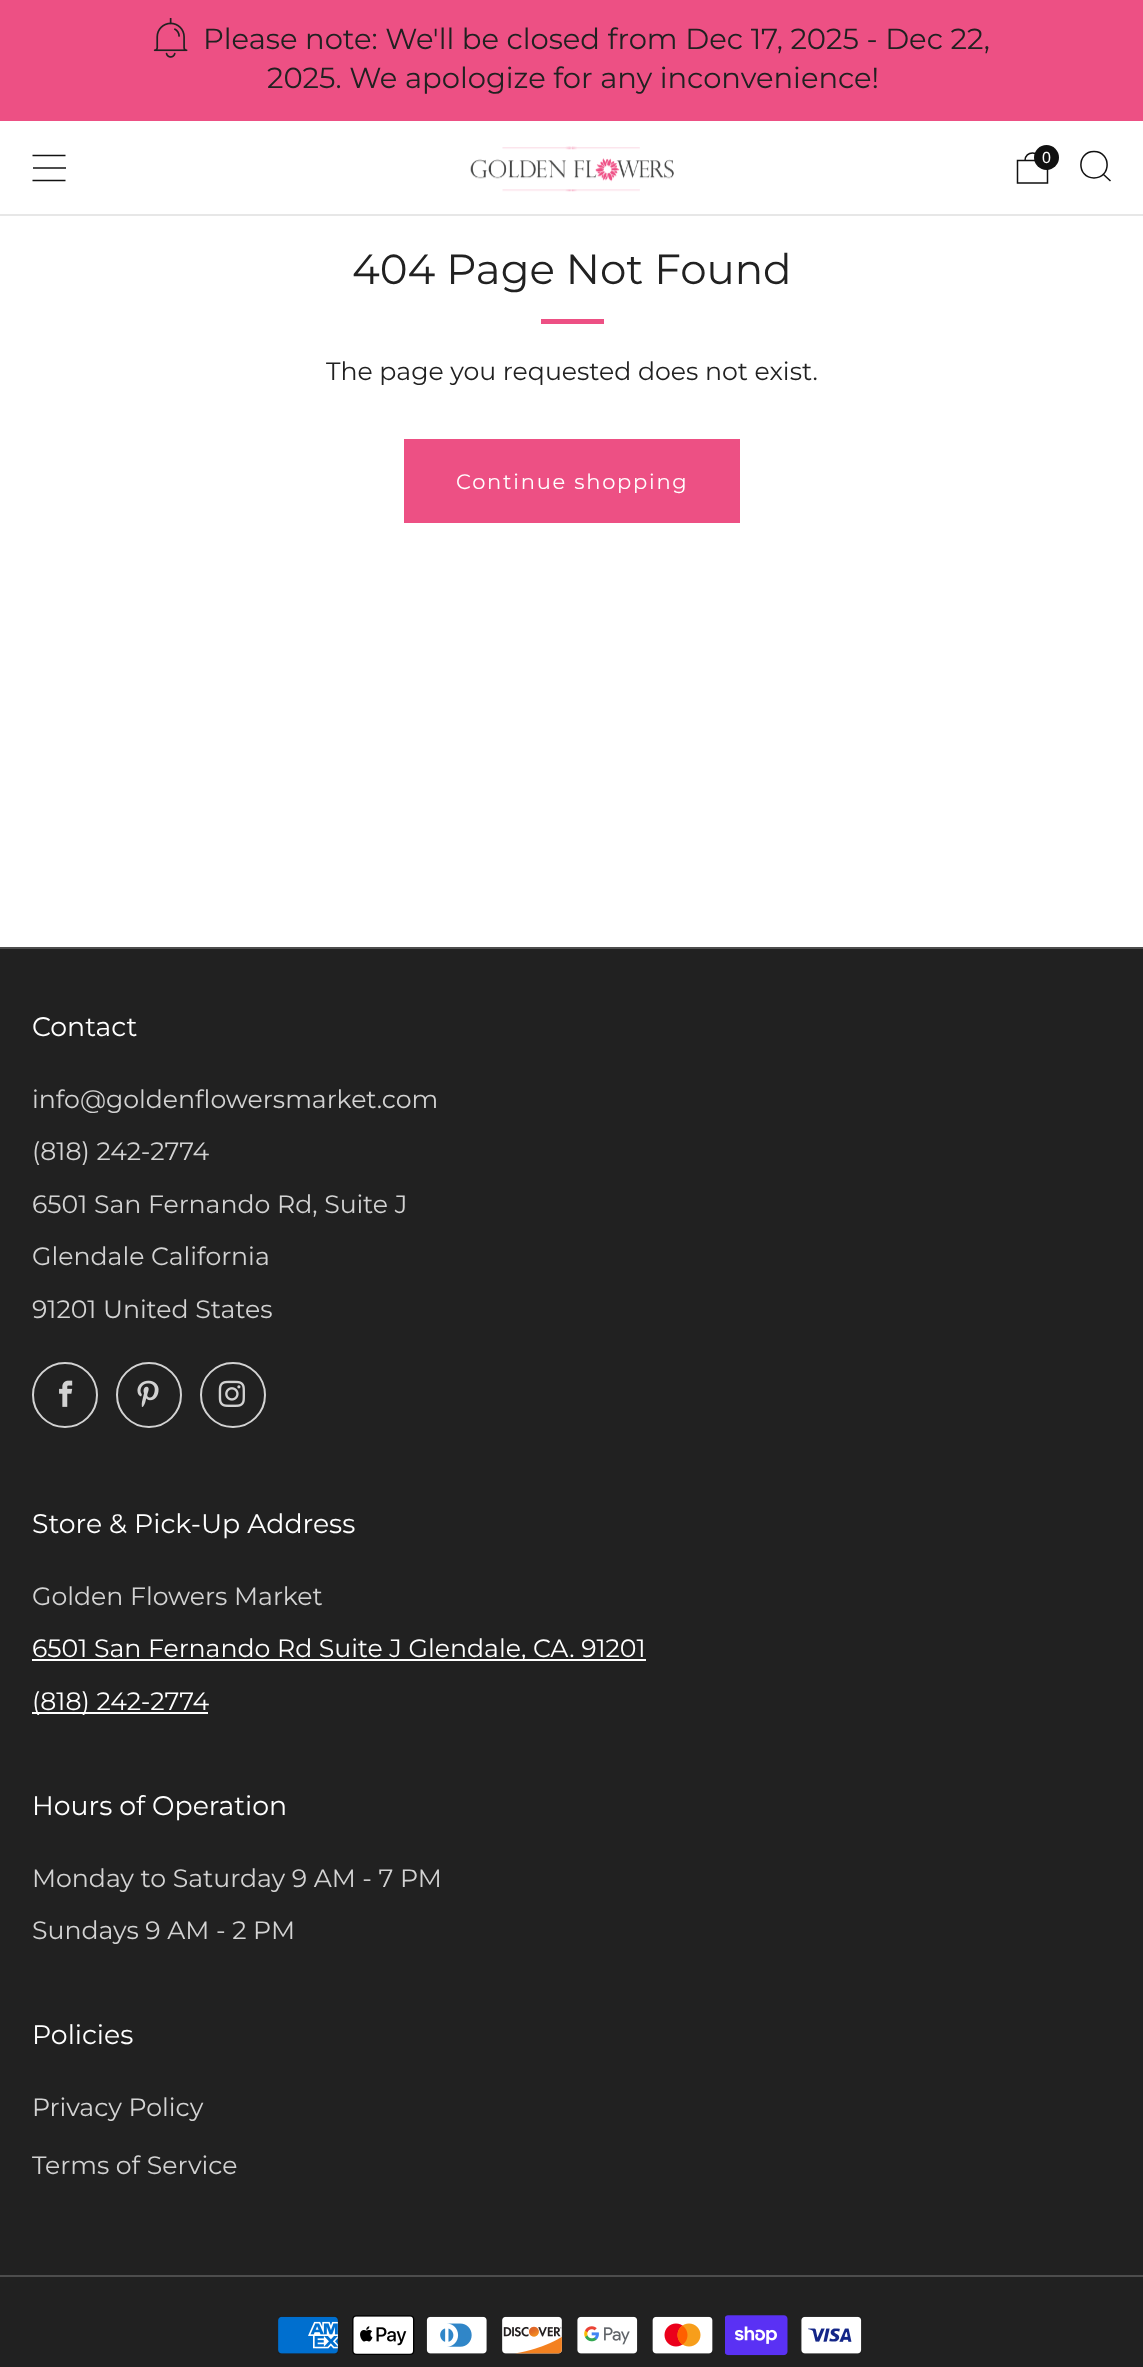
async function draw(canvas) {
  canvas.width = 1143;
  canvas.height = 2367;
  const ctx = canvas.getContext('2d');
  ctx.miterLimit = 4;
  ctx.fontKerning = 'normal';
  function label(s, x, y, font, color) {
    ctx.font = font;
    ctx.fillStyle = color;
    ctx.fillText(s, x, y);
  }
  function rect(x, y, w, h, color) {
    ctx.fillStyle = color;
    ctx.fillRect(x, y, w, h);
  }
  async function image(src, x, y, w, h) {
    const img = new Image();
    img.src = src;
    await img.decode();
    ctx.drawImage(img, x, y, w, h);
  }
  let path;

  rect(0, 0, 1143, 2367, '#fff');
  rect(0, 0, 1143, 121, '#ed5084');
  await image('assets/img1.png', 153, 18, 35, 40);
  label('Please note: We\'ll be closed from Dec 17, 2025 - Dec 22,', 203, 49, '29px Montserrat', '#212121');
  label('2025. We apologize for any inconvenience!', 267, 88, '29px Montserrat', '#212121');
  rect(0, 214, 1143, 2, '#e7e7e7');
  path = new Path2D('M32.5 155.5H65.5');
  ctx.strokeStyle = '#111';
  ctx.lineWidth = 1.5;
  ctx.stroke(path);
  rect(33, 167, 33, 2, '#4d4d4d');
  path = new Path2D('M32.5 180.5H65.5');
  ctx.stroke(path);
  await image('assets/img2.png', 470, 146, 204, 46);
  path = new Path2D('M1017.5 160.5H1047.5V183H1017.5ZM1040 160.5C1040 150.5 1025 150.5 1025 160.5');
  ctx.stroke(path);
  ctx.fillStyle = '#111';
  ctx.beginPath();
  ctx.arc(1046.5, 157.5, 12.5, 0, 2 * Math.PI);
  ctx.fill();
  label('0', 1042, 163, '16px Liberation Sans', '#fff');
  path = new Path2D('M1094 178C1111.5 178 1111.5 151.5 1094 151.5C1076.5 151.5 1076.5 178 1094 178ZM1103.5 174.5L1110.5 181');
  ctx.stroke(path);
  label('404 Page Not Found', 352, 284, '42px Montserrat', '#212121');
  rect(541, 319, 63, 5, '#ed5084');
  label('The page you requested does not exist.', 326, 380, '25.2px Montserrat', '#212121');
  rect(404, 439, 336, 84, '#ed5084');
  ctx.letterSpacing = '1.75px';
  label('Continue shopping', 456, 489, '21px Montserrat', '#fff');
  rect(0, 949, 1143, 1418, '#212121');
  rect(0, 947, 1143, 2, '#4d4d4d');
  ctx.letterSpacing = '0px';
  label('Contact', 32, 1036, '26.75px Montserrat', '#fff');
  label('info@goldenflowersmarket.com', 32, 1108, '25.2px Montserrat', '#d3d3d3');
  label('(818) 242-2774', 32, 1160, '25.2px Montserrat', '#d3d3d3');
  label('6501 San Fernando Rd, Suite J', 32, 1213, '25.2px Montserrat', '#d3d3d3');
  label('Glendale California', 32, 1265, '25.2px Montserrat', '#d3d3d3');
  label('91201 United States', 32, 1318, '25.2px Montserrat', '#d3d3d3');
  ctx.beginPath();
  ctx.arc(65, 1395, 32, 0, 2 * Math.PI);
  ctx.strokeStyle = '#d3d3d3';
  ctx.lineWidth = 2;
  ctx.stroke();
  await image('assets/img3.png', 59, 1380, 14, 27);
  ctx.beginPath();
  ctx.arc(149, 1395, 32, 0, 2 * Math.PI);
  ctx.stroke();
  await image('assets/img4.png', 137, 1380, 22, 27);
  ctx.beginPath();
  ctx.arc(233, 1395, 32, 0, 2 * Math.PI);
  ctx.stroke();
  await image('assets/img5.png', 218, 1380, 27, 27);
  label('Store & Pick-Up Address', 32, 1533, '26.75px Montserrat', '#fff');
  label('Golden Flowers Market', 32, 1605, '25.2px Montserrat', '#d3d3d3');
  rect(32, 1659, 614, 2, '#fff');
  label('6501 San Fernando Rd Suite J Glendale, CA. 91201', 32, 1657, '25.2px Montserrat', '#fff');
  rect(32, 1712, 176, 2, '#fff');
  label('(818) 242-2774', 32, 1710, '25.2px Montserrat', '#fff');
  label('Hours of Operation', 32, 1815, '26.75px Montserrat', '#fff');
  label('Monday to Saturday 9 AM - 7 PM', 32, 1887, '25.2px Montserrat', '#d3d3d3');
  label('Sundays 9 AM - 2 PM', 32, 1939, '25.2px Montserrat', '#d3d3d3');
  label('Policies', 32, 2044, '26.75px Montserrat', '#fff');
  label('Privacy Policy', 32, 2116, '25.2px Montserrat', '#d3d3d3');
  label('Terms of Service', 32, 2174, '25.2px Montserrat', '#d3d3d3');
  rect(0, 2275, 1143, 2, '#4d4d4d');
  await image('assets/img6.png', 278, 2316, 60, 38);
  await image('assets/img7.png', 352, 2315, 63, 40);
  await image('assets/img8.png', 426, 2316, 61, 38);
  await image('assets/img9.png', 502, 2316, 60, 38);
  await image('assets/img10.png', 577, 2316, 61, 38);
  await image('assets/img11.png', 652, 2316, 61, 38);
  await image('assets/img12.png', 725, 2315, 63, 41);
  await image('assets/img13.png', 801, 2316, 61, 38);
}

draw(document.querySelector('canvas'));
